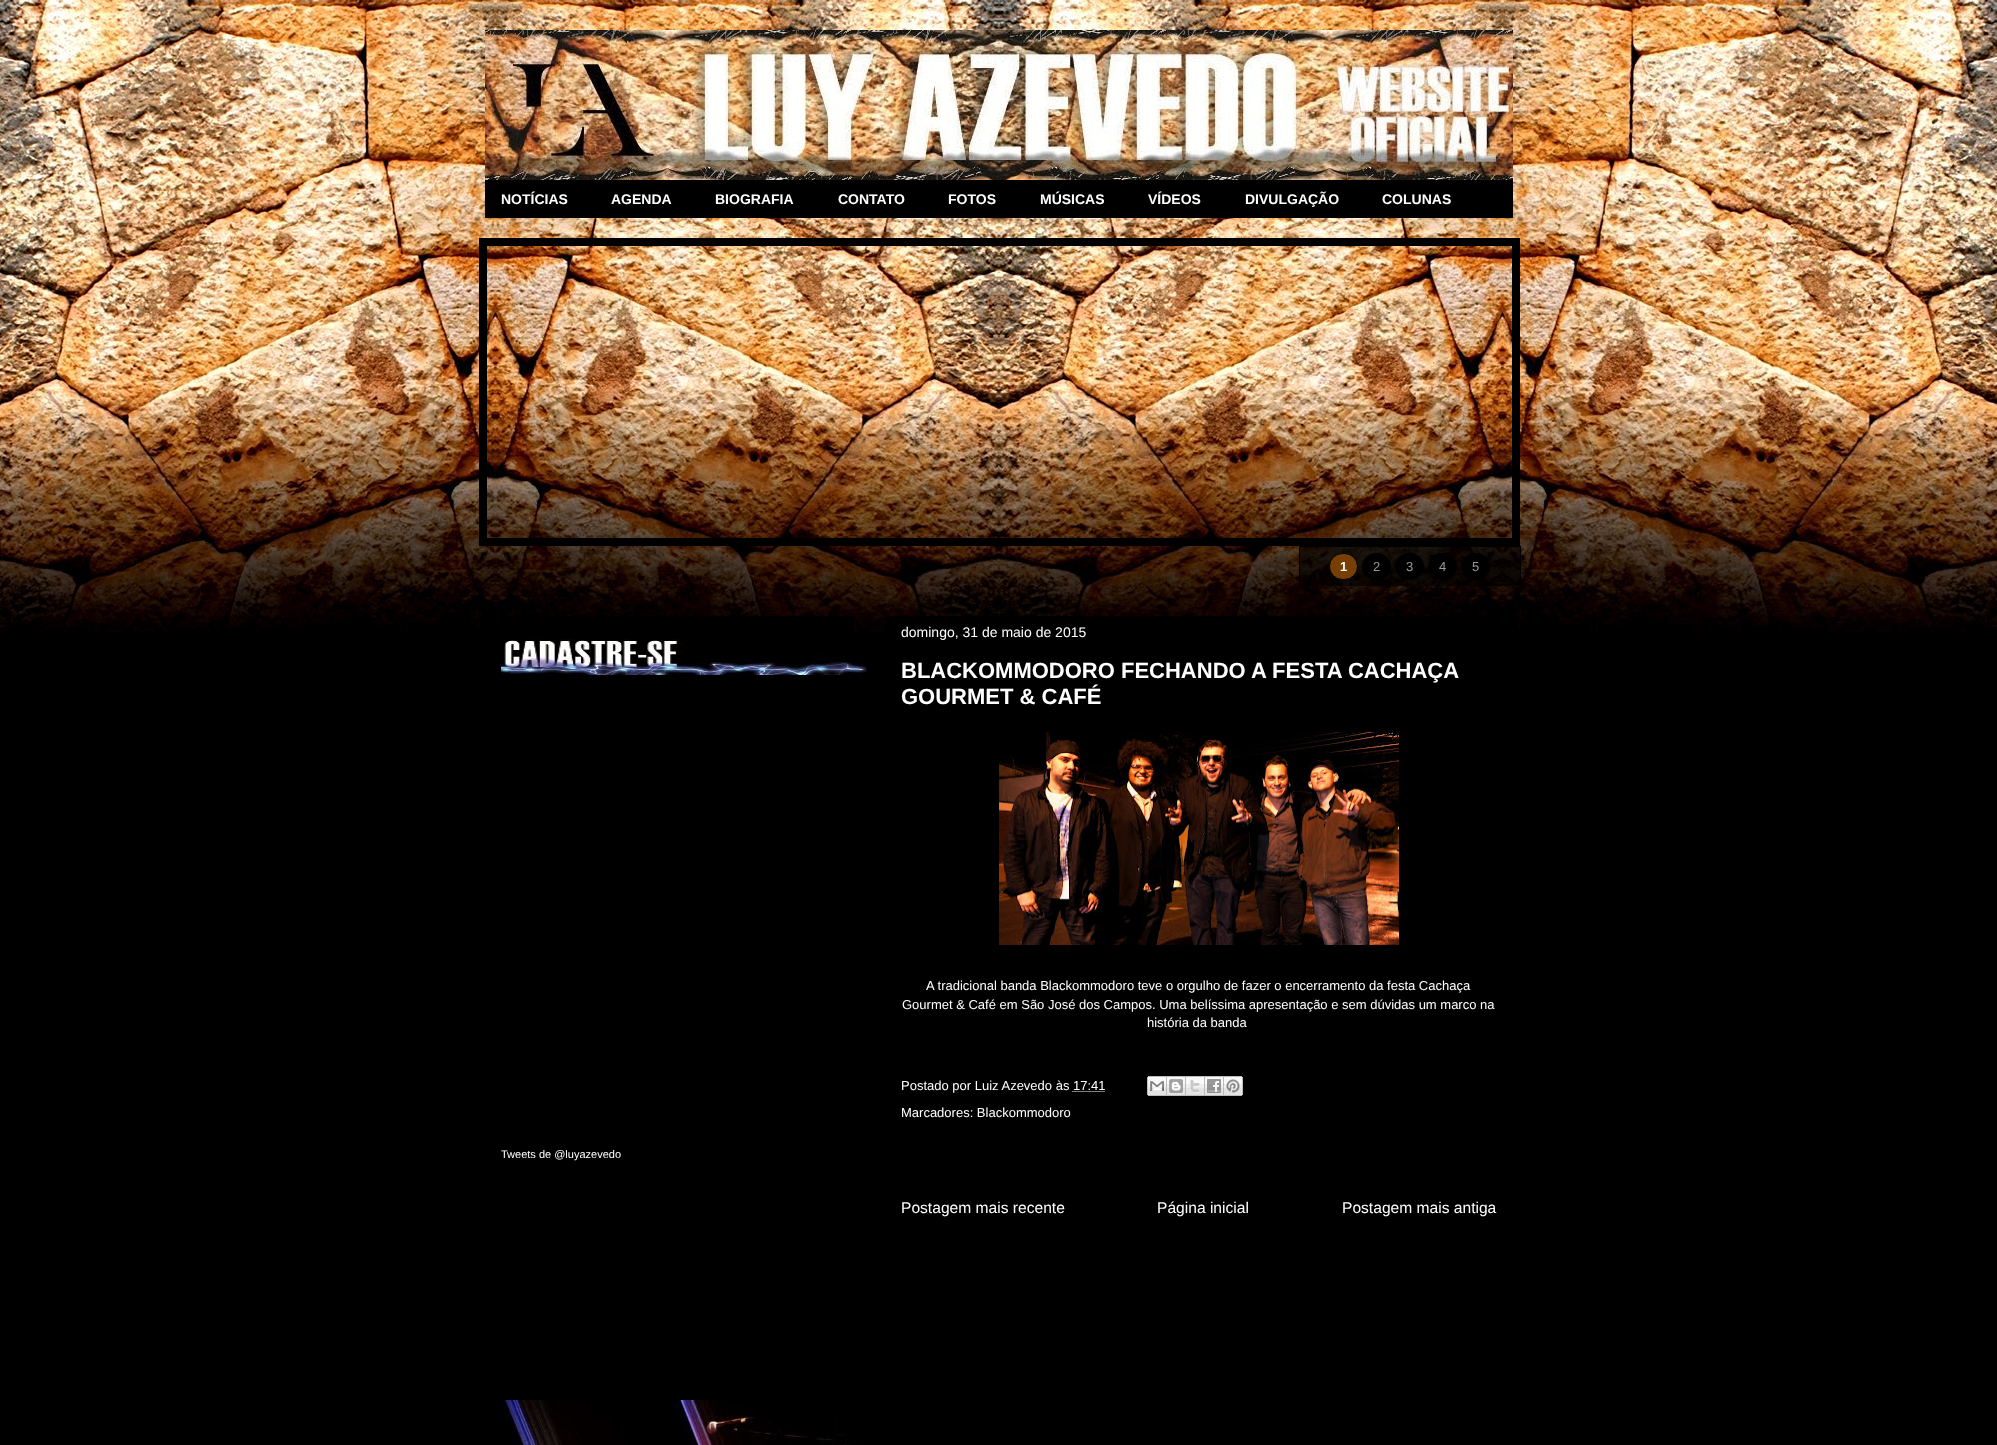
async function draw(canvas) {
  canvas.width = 1997;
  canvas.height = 1445;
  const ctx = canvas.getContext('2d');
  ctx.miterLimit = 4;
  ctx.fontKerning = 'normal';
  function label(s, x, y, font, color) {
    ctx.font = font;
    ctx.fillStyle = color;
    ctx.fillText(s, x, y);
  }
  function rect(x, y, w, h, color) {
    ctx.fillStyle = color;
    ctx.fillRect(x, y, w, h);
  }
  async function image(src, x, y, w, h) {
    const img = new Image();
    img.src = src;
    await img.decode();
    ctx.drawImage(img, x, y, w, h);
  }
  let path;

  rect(0, 0, 1997, 1445, '#000');
  await image('assets/img1.png', 0, 0, 1997, 632);
  await image('assets/img2.png', 485, 30, 1028, 150);
  rect(485, 180, 1028, 38, '#000');
  label('NOTÍCIAS', 501, 204, 'bold 14px Liberation Sans', '#fff');
  label('AGENDA', 611, 204, 'bold 14px Liberation Sans', '#fff');
  label('BIOGRAFIA', 715, 204, 'bold 14px Liberation Sans', '#fff');
  label('CONTATO', 838, 204, 'bold 14px Liberation Sans', '#fff');
  label('FOTOS', 948, 204, 'bold 14px Liberation Sans', '#fff');
  label('MÚSICAS', 1040, 204, 'bold 14px Liberation Sans', '#fff');
  label('VÍDEOS', 1148, 204, 'bold 14px Liberation Sans', '#fff');
  label('DIVULGAÇÃO', 1245, 204, 'bold 14px Liberation Sans', '#fff');
  label('COLUNAS', 1382, 204, 'bold 14px Liberation Sans', '#fff');
  ctx.strokeStyle = '#000';
  ctx.lineWidth = 8;
  ctx.strokeRect(483, 242, 1033, 300);
  rect(1300, 547, 220, 39, '#000000a6');
  ctx.save();
  ctx.beginPath();
  ctx.rect(0, 180, 1997, 406);
  ctx.clip();
  ctx.lineWidth = 1;
  ctx.strokeRect(1299.5, 546.5, 221, 42);
  ctx.restore();
  ctx.fillStyle = '#783f04';
  ctx.beginPath();
  ctx.roundRect(1329.5, 553.5, 28, 26, 13);
  ctx.fill();
  ctx.lineWidth = 1;
  ctx.stroke();
  label('1', 1340, 571, 'bold 13px Liberation Sans', '#fff');
  ctx.fillStyle = '#000';
  ctx.beginPath();
  ctx.roundRect(1362.5, 553.5, 28, 26, 13);
  ctx.fill();
  ctx.stroke();
  label('2', 1373, 571, '13px Liberation Sans', '#999');
  ctx.fillStyle = '#000';
  ctx.beginPath();
  ctx.roundRect(1395.5, 553.5, 28, 26, 13);
  ctx.fill();
  ctx.stroke();
  label('3', 1406, 571, '13px Liberation Sans', '#999');
  ctx.fillStyle = '#000';
  ctx.beginPath();
  ctx.roundRect(1428.5, 553.5, 28, 26, 13);
  ctx.fill();
  ctx.stroke();
  label('4', 1439, 571, '13px Liberation Sans', '#999');
  ctx.fillStyle = '#000';
  ctx.beginPath();
  ctx.roundRect(1461.5, 553.5, 28, 26, 13);
  ctx.fill();
  ctx.stroke();
  label('5', 1472, 571, '13px Liberation Sans', '#999');
  rect(511, 616, 342, 16, '#000');
  await image('assets/img3.png', 501, 639, 367, 36);
  label('Tweets de @luyazevedo', 501, 1158, '11px Liberation Sans', '#fff');
  await image('assets/img4.png', 501, 1400, 350, 45);
  rect(885, 616, 602, 16, '#000');
  label('domingo, 31 de maio de 2015', 901, 637, '14px Liberation Sans', '#fff');
  label('BLACKOMMODORO FECHANDO A FESTA CACHAÇA', 901, 678, 'bold 22px Liberation Sans', '#fff');
  label('GOURMET & CAFÉ', 901, 704, 'bold 22px Liberation Sans', '#fff');
  await image('assets/img5.png', 999, 732, 400, 213);
  label('A tradicional banda Blackommodoro teve o orgulho de fazer o encerramento da festa Cachaça', 926, 990, '13px Liberation Sans', '#fff');
  label('Gourmet & Café em São José dos Campos. Uma belíssima apresentação e sem dúvidas um marco na', 902, 1009, '13px Liberation Sans', '#fff');
  label('história da banda', 1147, 1027, '13px Liberation Sans', '#fff');
  label('Postado por Luiz Azevedo às 17:41', 901, 1090, '13px Liberation Sans', '#fff');
  await image('assets/img6.png', 1147, 1076, 20, 20);
  await image('assets/img7.png', 1167, 1076, 19, 20);
  await image('assets/img8.png', 1186, 1076, 19, 20);
  await image('assets/img9.png', 1205, 1076, 19, 20);
  await image('assets/img10.png', 1224, 1076, 19, 20);
  path = new Path2D('M1072.5 1091.5H1105');
  ctx.strokeStyle = '#fff';
  ctx.setLineDash([1, 1]);
  ctx.stroke(path);
  label('Marcadores: Blackommodoro', 901, 1117, '13px Liberation Sans', '#fff');
  label('Postagem mais recente', 901, 1213, '15.6px Liberation Sans', '#fff');
  label('Página inicial', 1157, 1213, '15.6px Liberation Sans', '#fff');
  label('Postagem mais antiga', 1342, 1213, '15.6px Liberation Sans', '#fff');
}

draw(document.querySelector('canvas'));
